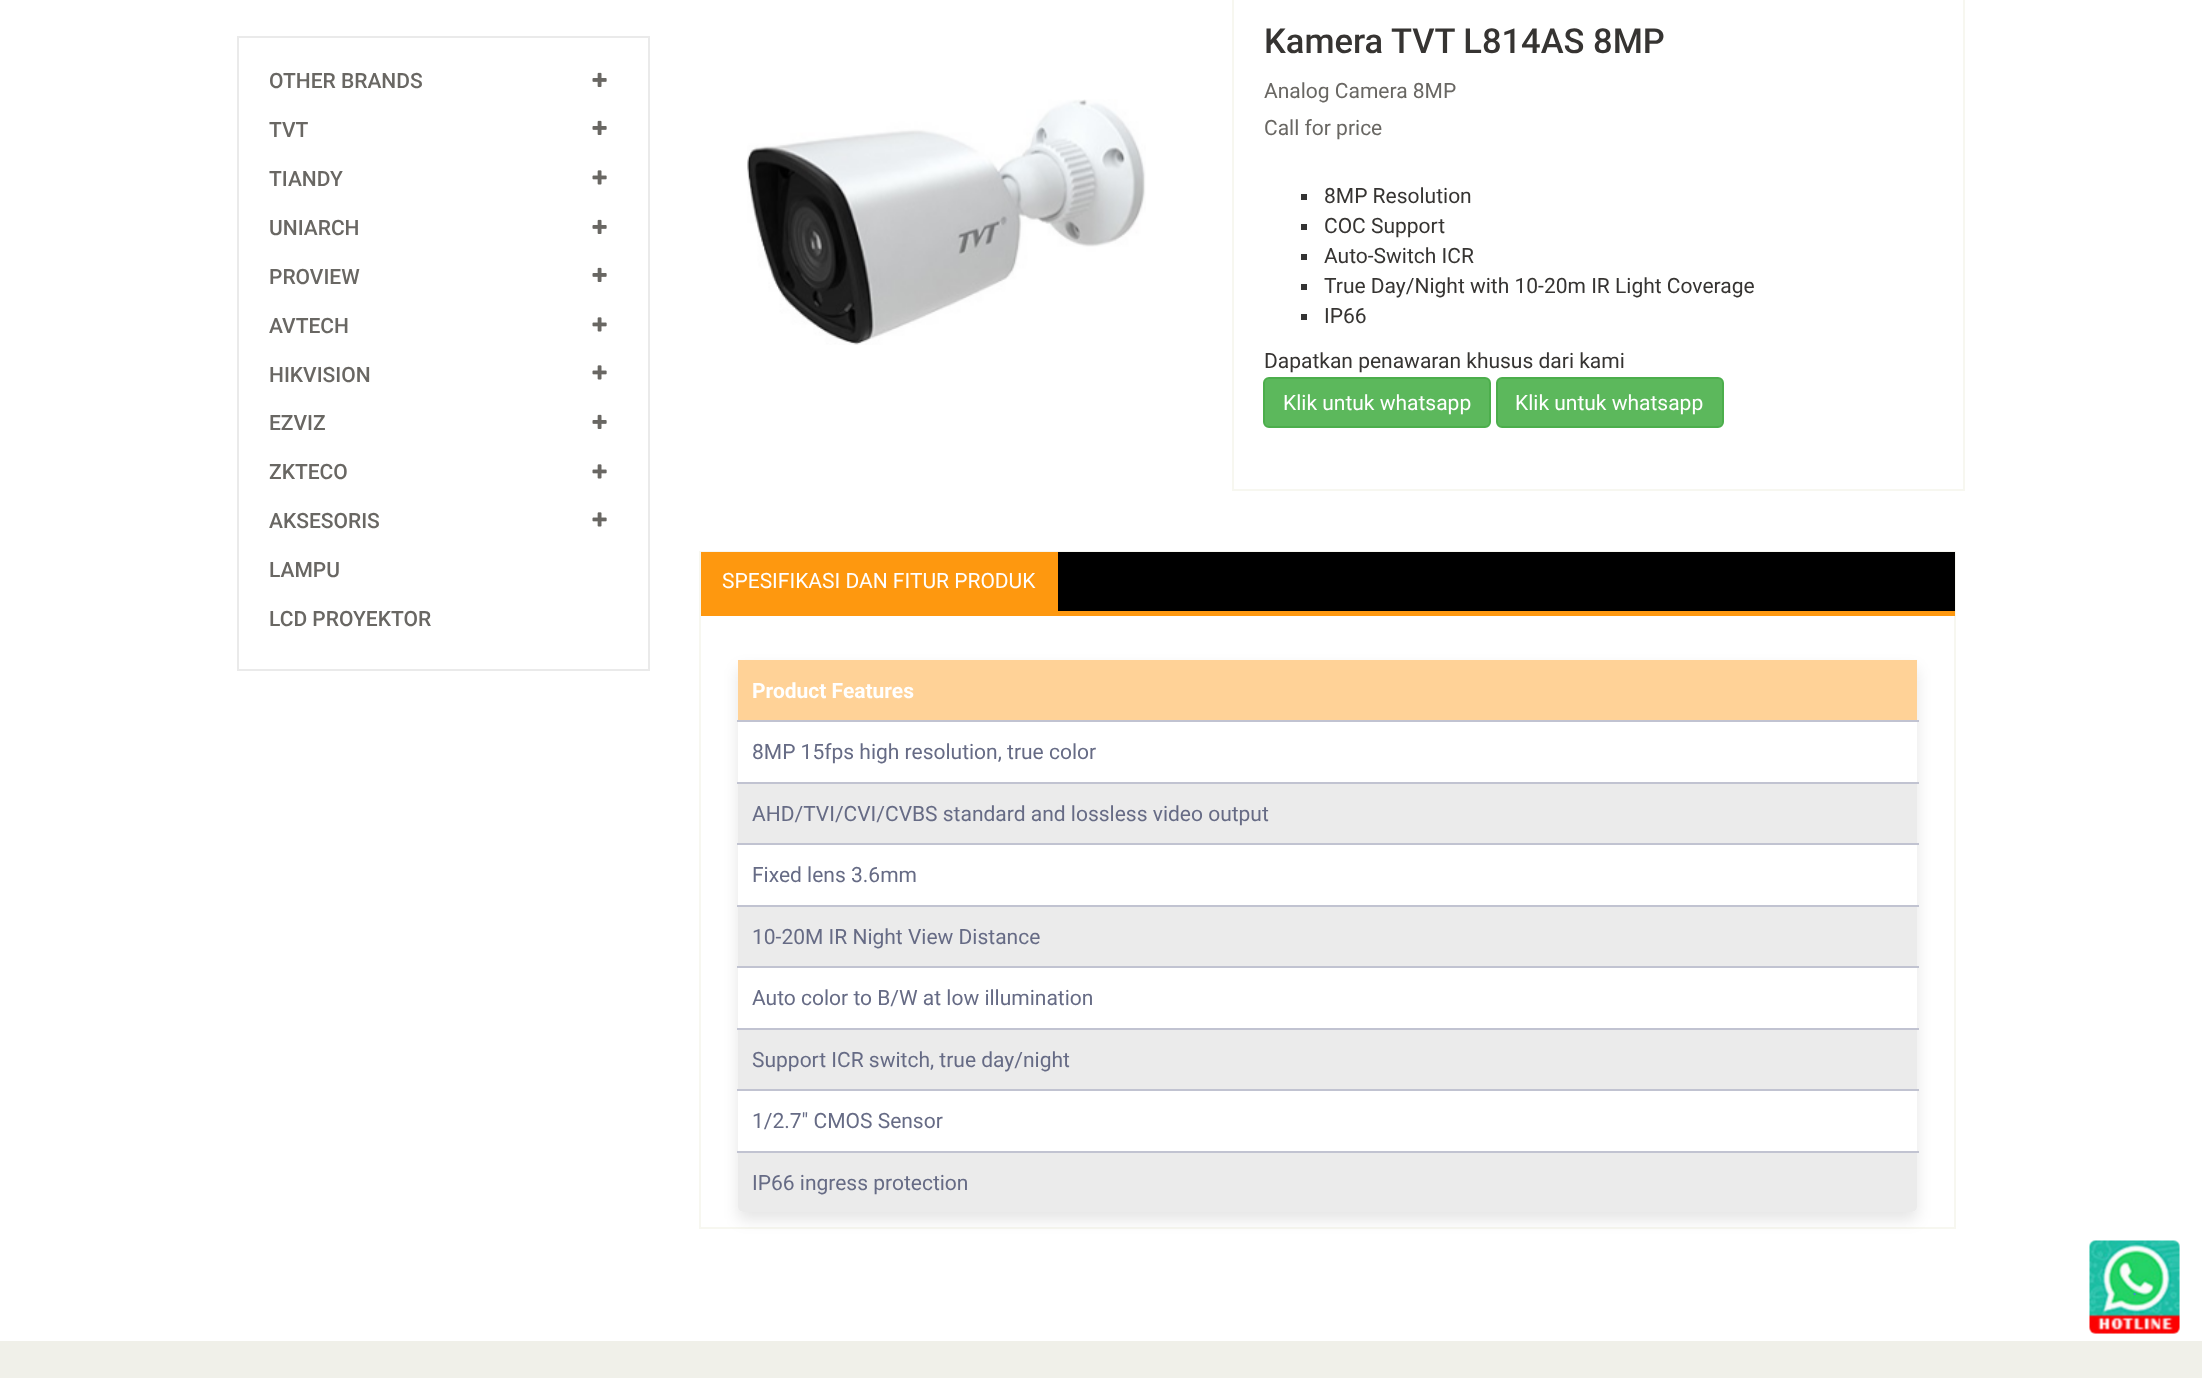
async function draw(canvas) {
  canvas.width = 2202;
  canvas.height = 1378;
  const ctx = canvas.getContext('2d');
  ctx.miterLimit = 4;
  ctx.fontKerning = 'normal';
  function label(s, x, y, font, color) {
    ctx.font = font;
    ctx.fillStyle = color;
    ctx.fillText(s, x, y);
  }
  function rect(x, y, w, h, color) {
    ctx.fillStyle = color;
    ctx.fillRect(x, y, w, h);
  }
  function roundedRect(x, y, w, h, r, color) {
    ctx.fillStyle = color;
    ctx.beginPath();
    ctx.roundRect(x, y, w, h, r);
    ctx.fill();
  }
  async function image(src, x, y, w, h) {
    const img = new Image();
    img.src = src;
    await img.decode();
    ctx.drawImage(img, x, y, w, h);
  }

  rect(0, 0, 2202, 1378, '#fff');
  ctx.strokeStyle = '#eaeaea';
  ctx.lineWidth = 2;
  ctx.strokeRect(238, 37, 411, 633);
  label('OTHER BRANDS', 269, 88, '500 21px Roboto', '#696763');
  await image('assets/img1.png', 592, 72, 15, 15);
  label('TVT', 269, 137, '500 21px Roboto', '#696763');
  await image('assets/img1.png', 592, 120, 15, 15);
  label('TIANDY', 269, 186, '500 21px Roboto', '#696763');
  await image('assets/img2.png', 592, 170, 15, 15);
  label('UNIARCH', 269, 235, '500 21px Roboto', '#696763');
  await image('assets/img1.png', 592, 219, 15, 15);
  label('PROVIEW', 269, 284, '500 21px Roboto', '#696763');
  await image('assets/img1.png', 592, 267, 15, 15);
  label('AVTECH', 269, 333, '500 21px Roboto', '#696763');
  await image('assets/img2.png', 592, 317, 15, 15);
  label('HIKVISION', 269, 382, '500 21px Roboto', '#696763');
  await image('assets/img2.png', 592, 365, 15, 15);
  label('EZVIZ', 269, 430, '500 21px Roboto', '#696763');
  await image('assets/img1.png', 592, 414, 15, 15);
  label('ZKTECO', 269, 479, '500 21px Roboto', '#696763');
  await image('assets/img2.png', 592, 464, 15, 15);
  label('AKSESORIS', 269, 528, '500 21px Roboto', '#696763');
  await image('assets/img2.png', 592, 512, 15, 15);
  label('LAMPU', 269, 577, '500 21px Roboto', '#696763');
  label('LCD PROYEKTOR', 269, 626, '500 21px Roboto', '#696763');
  await image('assets/img3.png', 747, 99, 399, 246);
  ctx.strokeStyle = '#f7f7f0';
  ctx.strokeRect(1233, -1, 731, 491);
  label('Kamera TVT L814AS 8MP', 1264, 53, '500 34.5px Roboto', '#363432');
  label('Analog Camera 8MP', 1264, 98, '21px Roboto', '#696763');
  label('Call for price', 1264, 135, '21px Roboto', '#696763');
  rect(1301, 194, 6, 6, '#333');
  label('8MP Resolution', 1324, 203, '21px Roboto', '#363432');
  rect(1301, 224, 6, 6, '#333');
  label('COC Support', 1324, 233, '21px Roboto', '#363432');
  rect(1301, 254, 6, 6, '#333');
  label('Auto-Switch ICR', 1324, 263, '21px Roboto', '#363432');
  rect(1301, 284, 6, 6, '#333');
  label('True Day/Night with 10-20m IR Light Coverage', 1324, 293, '21px Roboto', '#363432');
  rect(1301, 314, 6, 6, '#333');
  label('IP66', 1324, 323, '21px Roboto', '#363432');
  label('Dapatkan penawaran khusus dari kami', 1264, 368, '21px Roboto', '#363432');
  ctx.fillStyle = '#5cb85c';
  ctx.beginPath();
  ctx.roundRect(1264, 378, 226, 49, 5);
  ctx.fill();
  ctx.strokeStyle = '#4cae4c';
  ctx.stroke();
  label('Klik untuk whatsapp', 1283, 410, '21px Roboto', '#fff');
  ctx.fillStyle = '#5cb85c';
  ctx.beginPath();
  ctx.roundRect(1497, 378, 226, 49, 5);
  ctx.fill();
  ctx.stroke();
  label('Klik untuk whatsapp', 1515, 410, '21px Roboto', '#fff');
  ctx.strokeStyle = '#f7f7f0';
  ctx.strokeRect(700, 552, 1255, 676);
  rect(1058, 552, 897, 59, '#000');
  rect(701, 611, 1254, 5, '#fe980f');
  rect(701, 552, 357, 59, '#fe980f');
  label('SPESIFIKASI DAN FITUR PRODUK', 722, 588, '21px Roboto', '#fff');
  ctx.fillStyle = '#0000001a';
  ctx.filter = 'blur(7.5px)';
  ctx.beginPath();
  ctx.roundRect(738, 668, 1179, 552, 5);
  ctx.fill();
  ctx.filter = 'none';
  roundedRect(738, 660, 1179, 552, 5, '#fff');
  rect(738, 660, 1179, 60, '#ffd297');
  label('Product Features', 752, 698, 'bold 21px Roboto', '#fff');
  rect(737, 720, 1182, 2, '#c1c3d1');
  label('8MP 15fps high resolution, true color', 752, 759, '21px Roboto', '#666b85');
  rect(737, 782, 1182, 2, '#c1c3d1');
  rect(738, 784, 1179, 59, '#ebebeb');
  label('AHD/TVI/CVI/CVBS standard and lossless video output', 752, 821, '21px Roboto', '#666b85');
  rect(737, 843, 1182, 2, '#c1c3d1');
  label('Fixed lens 3.6mm', 752, 882, '21px Roboto', '#666b85');
  rect(737, 905, 1182, 2, '#c1c3d1');
  rect(738, 907, 1179, 59, '#ebebeb');
  label('10-20M IR Night View Distance', 752, 944, '21px Roboto', '#666b85');
  rect(737, 966, 1182, 2, '#c1c3d1');
  label('Auto color to B/W at low illumination', 752, 1005, '21px Roboto', '#666b85');
  rect(737, 1028, 1182, 2, '#c1c3d1');
  rect(738, 1030, 1179, 59, '#ebebeb');
  label('Support ICR switch, true day/night', 752, 1067, '21px Roboto', '#666b85');
  rect(737, 1089, 1182, 2, '#c1c3d1');
  label('1/2.7" CMOS Sensor', 752, 1128, '21px Roboto', '#666b85');
  ctx.fillStyle = '#ebebeb';
  ctx.beginPath();
  ctx.roundRect(738, 1152, 1179, 60, [0, 0, 5, 5]);
  ctx.fill();
  rect(737, 1151, 1182, 2, '#c1c3d1');
  label('IP66 ingress protection', 752, 1190, '21px Roboto', '#666b85');
  roundedRect(2090, 1241, 90, 93, 6, '#efefef');
  await image('assets/img4.png', 2089, 1240, 91, 94);
  label('.', 2132, 1295, '21px Roboto', '#428bca');
  rect(0, 1341, 2202, 37, '#f0f0e9');
}

draw(document.querySelector('canvas'));
